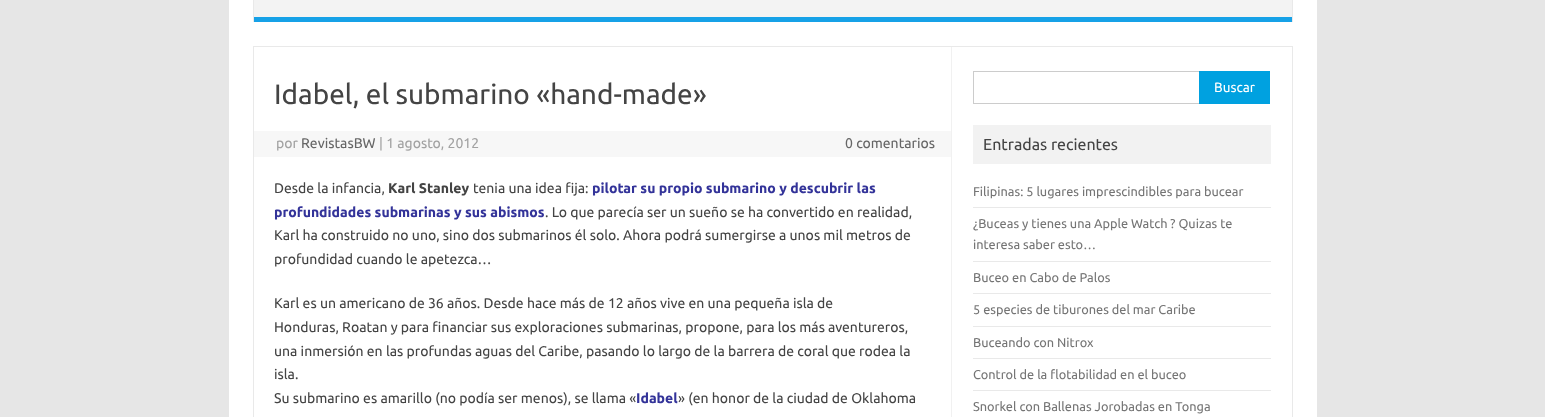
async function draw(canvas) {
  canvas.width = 1545;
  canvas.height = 417;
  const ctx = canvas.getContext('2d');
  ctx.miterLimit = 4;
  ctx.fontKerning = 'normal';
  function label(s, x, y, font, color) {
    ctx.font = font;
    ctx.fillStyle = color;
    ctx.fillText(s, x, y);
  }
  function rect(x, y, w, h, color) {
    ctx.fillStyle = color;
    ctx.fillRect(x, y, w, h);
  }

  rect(0, 0, 1545, 417, '#e6e6e6');
  rect(229, 0, 1088, 417, '#fff');
  rect(1292, 0, 1, 22, '#e9e9e9');
  rect(253, 0, 1, 22, '#e9e9e9');
  rect(254, 0, 1038, 17, '#f3f3f3');
  rect(254, 17, 1038, 5, '#16a1e7');
  ctx.strokeStyle = '#e9e9e9';
  ctx.strokeRect(253.5, 46.5, 1039, 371);
  rect(951, 47, 1, 370, '#f1f1f1');
  label('Idabel, el submarino «hand-made»', 274, 104, '28px Ubuntu', '#444');
  rect(254, 131, 697, 26, '#f7f7f7');
  label('por', 276, 148, '14px Ubuntu', '#a2a2a2');
  label('RevistasBW', 301, 148, '14px Ubuntu', '#666');
  label('| 1 agosto, 2012', 379, 148, '14px Ubuntu', '#a2a2a2');
  label('0 comentarios', 845, 148, '14px Ubuntu', '#666');
  label('Desde la infancia,', 274, 193, '14px Ubuntu', '#444');
  label('Karl Stanley', 388, 193, 'bold 14px Ubuntu', '#444');
  label('tenia una idea fija:', 473, 193, '14px Ubuntu', '#444');
  label('pilotar su propio submarino y descubrir las', 592, 193, 'bold 14px Ubuntu', '#339');
  label('profundidades submarinas y sus abismos', 274, 217, 'bold 14px Ubuntu', '#339');
  label('. Lo que parecía ser un sueño se ha convertido en realidad,', 545, 217, '14px Ubuntu', '#444');
  label('Karl ha construido no uno, sino dos submarinos él solo. Ahora podrá sumergirse a unos mil metros de', 274, 240, '14px Ubuntu', '#444');
  label('profundidad cuando le apetezca…', 274, 264, '14px Ubuntu', '#444');
  label('Karl es un americano de 36 años. Desde hace más de 12 años vive en una pequeña isla de', 274, 308, '14px Ubuntu', '#444');
  label('Honduras, Roatan y para financiar sus exploraciones submarinas, propone, para los más aventureros,', 274, 332, '14px Ubuntu', '#444');
  label('una inmersión en las profundas aguas del Caribe, pasando lo largo de la barrera de coral que rodea la', 274, 356, '14px Ubuntu', '#444');
  label('isla.', 274, 379, '14px Ubuntu', '#444');
  label('Su submarino es amarillo (no podía ser menos), se llama «', 274, 403, '14px Ubuntu', '#444');
  label('Idabel', 636, 403, 'bold 14px Ubuntu', '#339');
  label('» (en honor de la ciudad de Oklahoma', 678, 403, '14px Ubuntu', '#444');
  ctx.strokeStyle = '#ccc';
  ctx.strokeRect(973.5, 71.5, 226, 32);
  rect(1199, 71, 71, 33, '#00a1e0');
  label('Buscar', 1214, 92, '13.5px Ubuntu', '#fff');
  rect(973, 125, 298, 39, '#f2f2f2');
  label('Entradas recientes', 983, 150, '16px Ubuntu', '#444');
  rect(973, 207, 298, 1, '#e9e9e9');
  label('Filipinas: 5 lugares imprescindibles para bucear', 973, 196, '12.75px Ubuntu', '#757575');
  rect(973, 261, 298, 1, '#e9e9e9');
  label('¿Buceas y tienes una Apple Watch ? Quizas te', 973, 228, '12.75px Ubuntu', '#757575');
  label('interesa saber esto…', 973, 249, '12.75px Ubuntu', '#757575');
  rect(973, 293, 298, 1, '#e9e9e9');
  label('Buceo en Cabo de Palos', 973, 282, '12.75px Ubuntu', '#757575');
  rect(973, 326, 298, 1, '#e9e9e9');
  label('5 especies de tiburones del mar Caribe', 973, 314, '12.75px Ubuntu', '#757575');
  rect(973, 358, 298, 1, '#e9e9e9');
  label('Buceando con Nitrox', 973, 347, '12.75px Ubuntu', '#757575');
  rect(973, 390, 298, 1, '#e9e9e9');
  label('Control de la flotabilidad en el buceo', 973, 379, '12.75px Ubuntu', '#757575');
  label('Snorkel con Ballenas Jorobadas en Tonga', 973, 411, '12.75px Ubuntu', '#757575');
}

draw(document.querySelector('canvas'));
